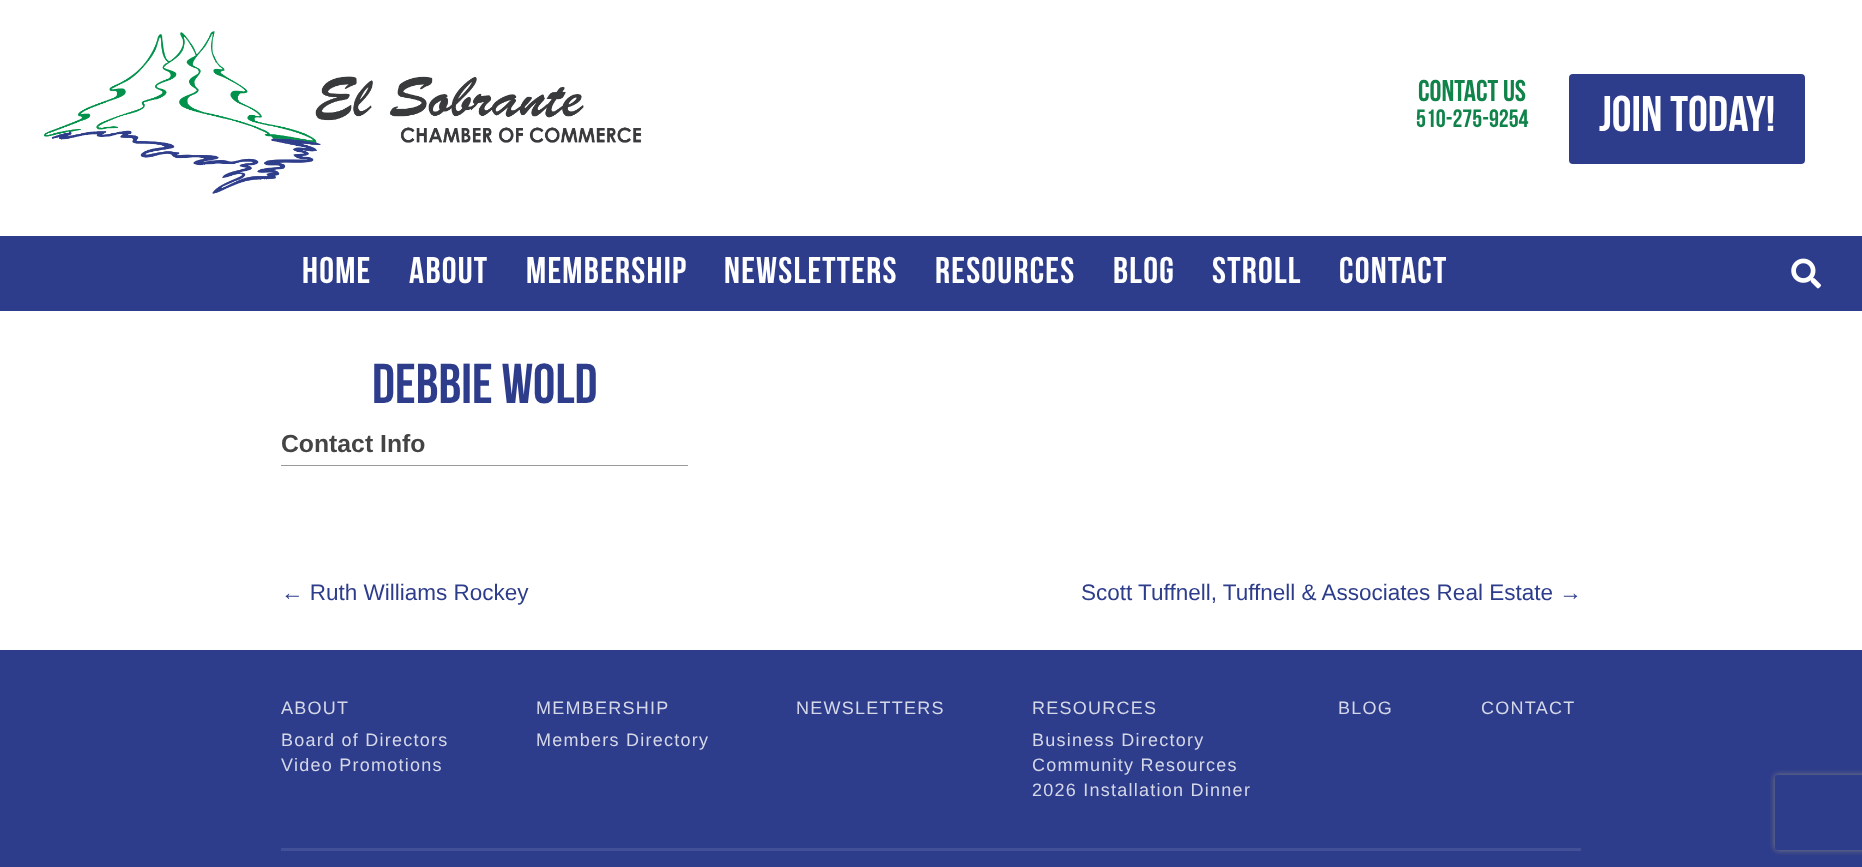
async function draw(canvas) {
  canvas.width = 1862;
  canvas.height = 867;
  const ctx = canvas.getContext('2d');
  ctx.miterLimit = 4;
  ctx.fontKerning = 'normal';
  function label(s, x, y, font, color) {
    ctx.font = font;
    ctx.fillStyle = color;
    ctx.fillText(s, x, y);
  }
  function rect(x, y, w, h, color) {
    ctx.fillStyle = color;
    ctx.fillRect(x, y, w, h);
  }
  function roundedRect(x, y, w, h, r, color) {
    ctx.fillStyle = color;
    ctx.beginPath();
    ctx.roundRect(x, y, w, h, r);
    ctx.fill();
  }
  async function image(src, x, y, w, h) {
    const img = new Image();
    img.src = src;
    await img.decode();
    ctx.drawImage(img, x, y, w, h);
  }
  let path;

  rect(0, 0, 1862, 867, '#fff');
  await image('assets/img1.png', 44, 31, 598, 163);
  label('Contact Us', 1418, 101, 'bold 30px Bebas Neue', '#0f834a');
  label('510-275-9254', 1416, 127, 'bold 25px Bebas Neue', '#0f834a');
  roundedRect(1569, 74, 236, 90, 4, '#2d3c8b');
  label('Join Today!', 1599, 131, 'bold 50px Bebas Neue', '#fff');
  rect(0, 236, 1862, 75, '#2d3c8b');
  ctx.letterSpacing = '1.25px';
  label('HOME', 302, 283, 'bold 37.25px Bebas Neue', '#fff');
  label('ABOUT', 409, 283, 'bold 37.25px Bebas Neue', '#fff');
  label('MEMBERSHIP', 526, 283, 'bold 37.25px Bebas Neue', '#fff');
  label('NEWSLETTERS', 724, 283, 'bold 37.25px Bebas Neue', '#fff');
  label('RESOURCES', 935, 283, 'bold 37.25px Bebas Neue', '#fff');
  label('BLOG', 1113, 283, 'bold 37.25px Bebas Neue', '#fff');
  label('STROLL', 1212, 283, 'bold 37.25px Bebas Neue', '#fff');
  label('CONTACT', 1339, 283, 'bold 37.25px Bebas Neue', '#fff');
  await image('assets/img2.png', 1791, 258, 30, 31);
  ctx.letterSpacing = '0px';
  label('Debbie Wold', 372, 403, 'bold 56.25px Bebas Neue', '#2d3c8b');
  rect(281, 465, 407, 1, '#999');
  label('Contact Info', 281, 452, 'bold 24.75px Liberation Sans', '#444');
  label('← Ruth Williams Rockey', 281, 600, '22.5px Liberation Sans', '#2d3c8b');
  label('Scott Tuffnell, Tuffnell & Associates Real Estate →', 1081, 600, '22.5px Liberation Sans', '#2d3c8b');
  rect(0, 650, 1862, 217, '#2d3c8b');
  ctx.letterSpacing = '1.25px';
  label('ABOUT', 281, 714, '18px Liberation Sans', '#d5d8e8');
  label('Board of Directors', 281, 746, '18px Liberation Sans', '#d5d8e8');
  label('Video Promotions', 281, 771, '18px Liberation Sans', '#d5d8e8');
  label('MEMBERSHIP', 536, 714, '18px Liberation Sans', '#d5d8e8');
  label('Members Directory', 536, 746, '18px Liberation Sans', '#d5d8e8');
  label('NEWSLETTERS', 796, 714, '18px Liberation Sans', '#d5d8e8');
  label('RESOURCES', 1032, 714, '18px Liberation Sans', '#d5d8e8');
  label('Business Directory', 1032, 746, '18px Liberation Sans', '#d5d8e8');
  label('Community Resources', 1032, 771, '18px Liberation Sans', '#d5d8e8');
  label('2026 Installation Dinner', 1032, 796, '18px Liberation Sans', '#d5d8e8');
  label('BLOG', 1338, 714, '18px Liberation Sans', '#d5d8e8');
  label('CONTACT', 1481, 714, '18px Liberation Sans', '#d5d8e8');
  rect(281, 848, 1300, 3, '#425097');
  ctx.save();
  path = new Path2D('M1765 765H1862V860H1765ZM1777.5 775H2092.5C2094 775 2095 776 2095 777.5V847.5C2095 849 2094 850 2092.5 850H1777.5C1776 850 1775 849 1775 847.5V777.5C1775 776 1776 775 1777.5 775Z');
  ctx.clip(path, 'evenodd');
  ctx.fillStyle = '#808080';
  ctx.filter = 'blur(3px)';
  ctx.beginPath();
  ctx.roundRect(1775, 775, 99, 75, 2.5);
  ctx.fill();
  ctx.filter = 'none';
  ctx.restore();
}

draw(document.querySelector('canvas'));
